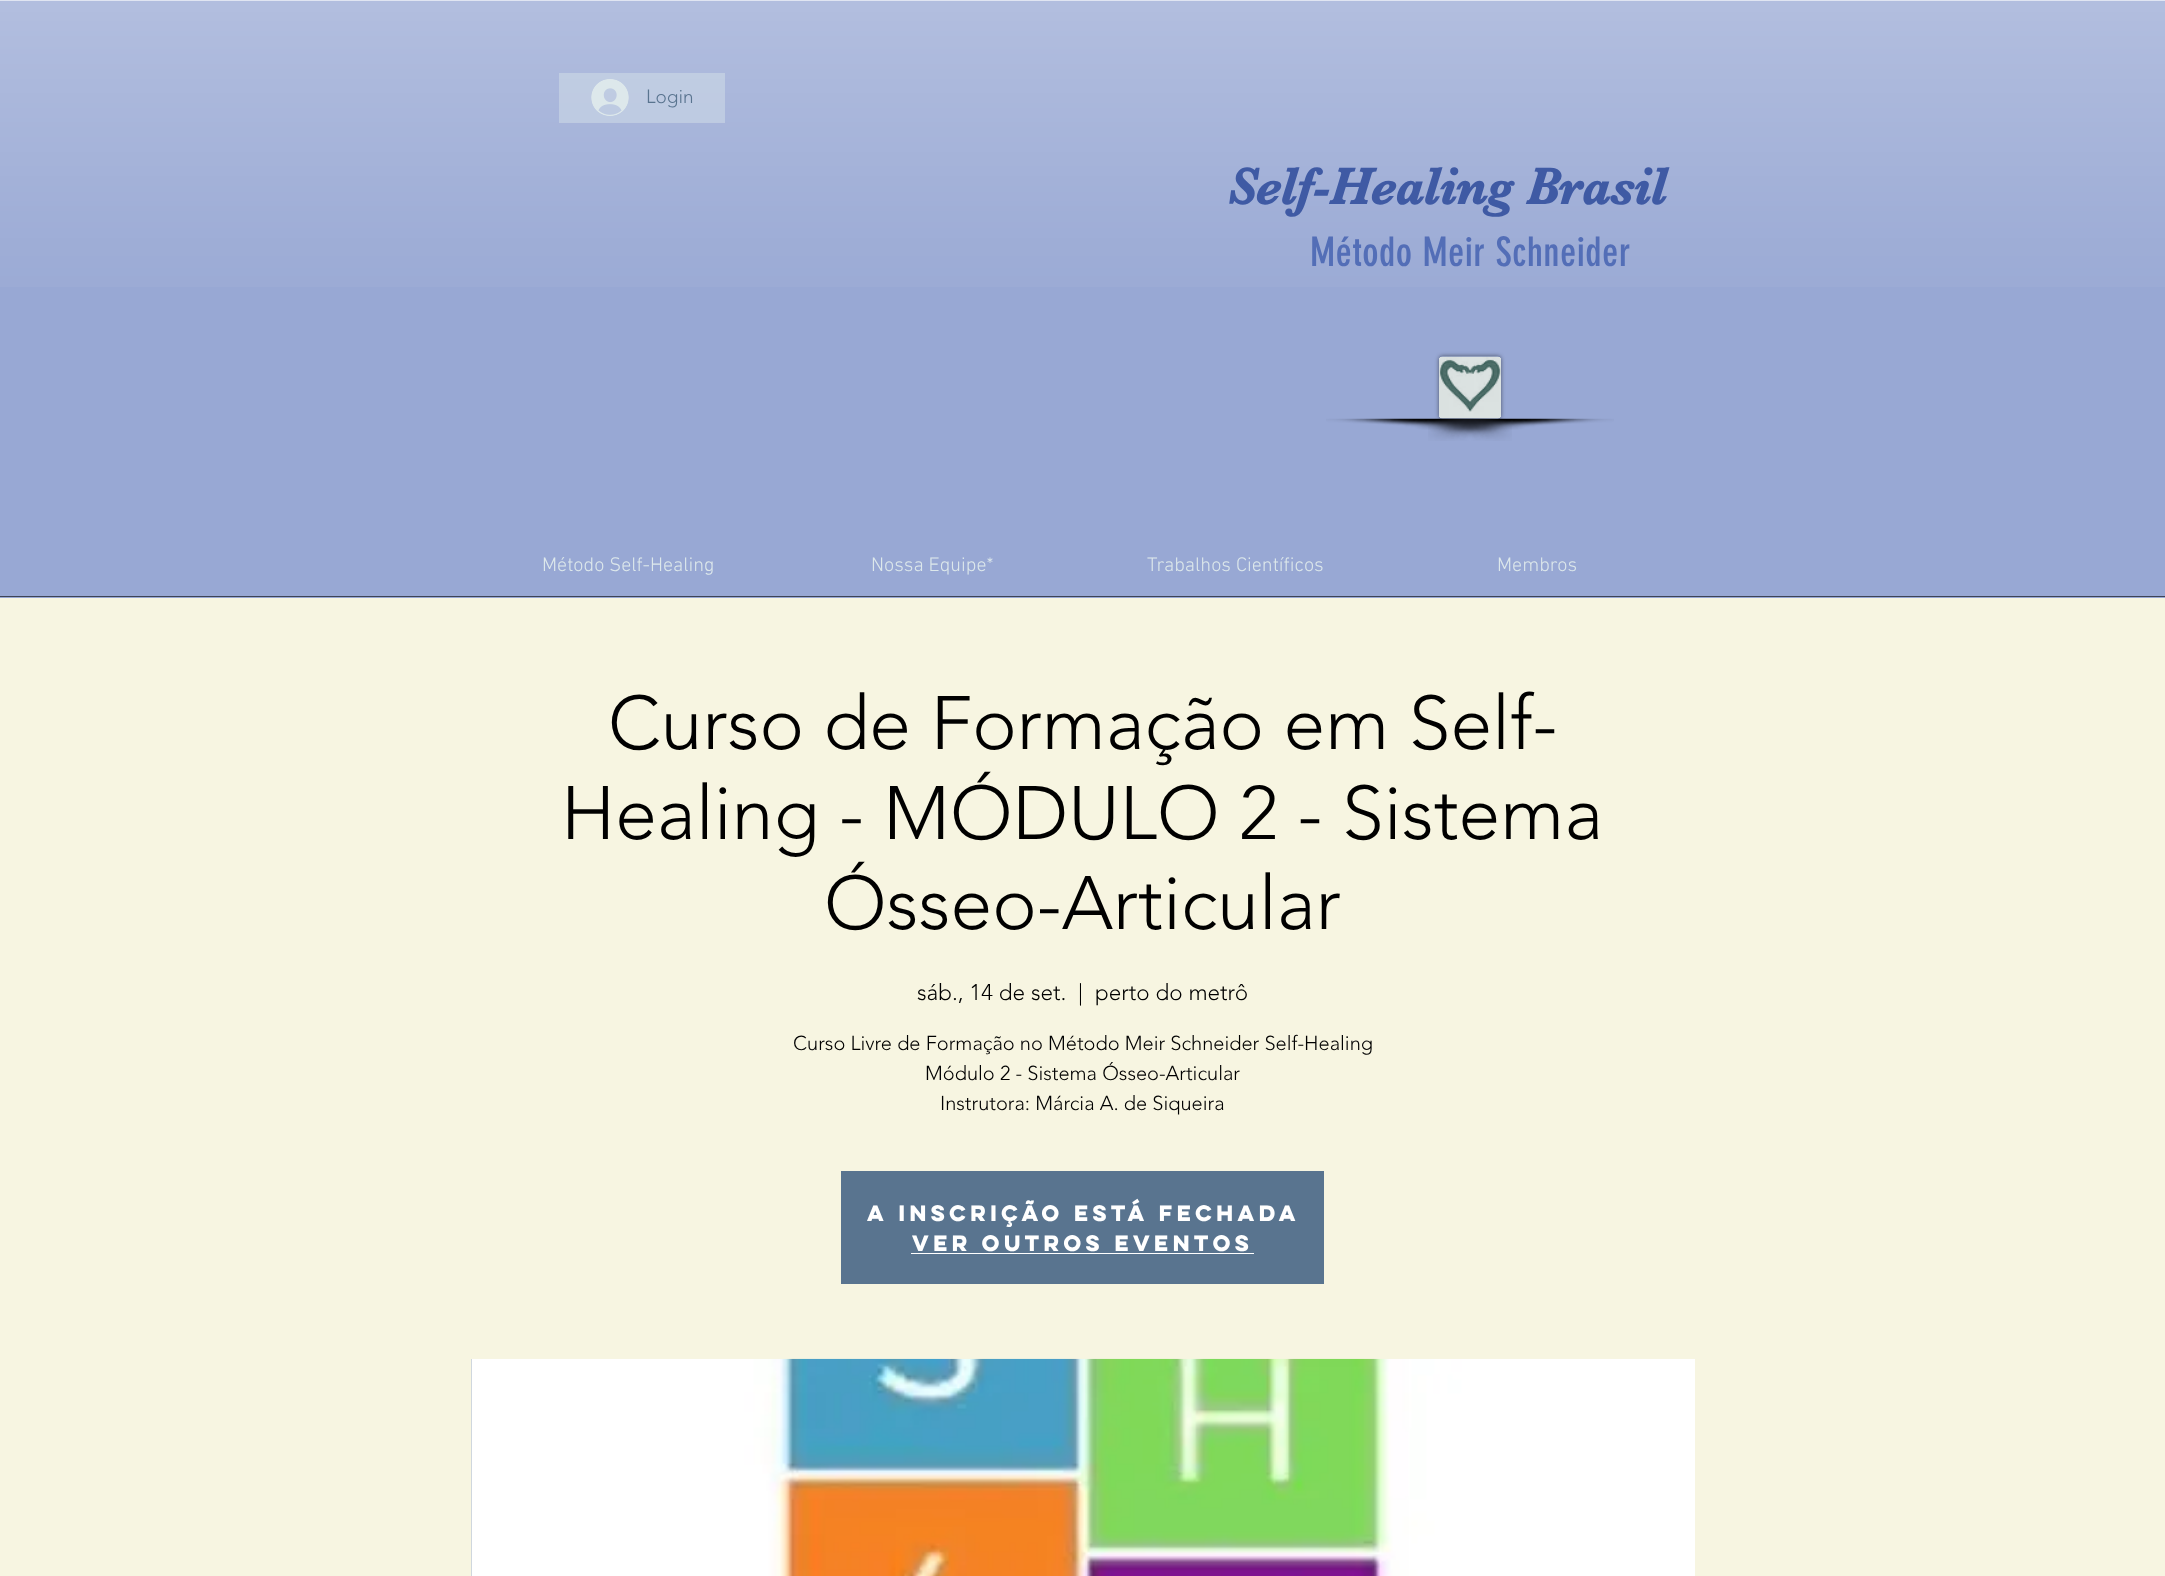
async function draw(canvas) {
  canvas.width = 2165;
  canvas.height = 1576;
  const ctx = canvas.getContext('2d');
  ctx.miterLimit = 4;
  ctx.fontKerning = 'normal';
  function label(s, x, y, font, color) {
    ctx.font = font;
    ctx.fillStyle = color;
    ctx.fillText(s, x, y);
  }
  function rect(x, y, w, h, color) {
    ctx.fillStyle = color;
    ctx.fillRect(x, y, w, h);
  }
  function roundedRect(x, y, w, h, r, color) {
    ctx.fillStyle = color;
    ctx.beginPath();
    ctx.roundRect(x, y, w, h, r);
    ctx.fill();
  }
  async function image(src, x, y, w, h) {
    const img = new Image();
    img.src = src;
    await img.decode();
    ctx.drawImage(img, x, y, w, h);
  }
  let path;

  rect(0, 0, 2165, 1576, '#fff');
  ctx.save();
  path = new Path2D('M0 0H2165V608H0ZM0 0H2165V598H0Z');
  ctx.clip(path, 'evenodd');
  ctx.fillStyle = '#00000099';
  ctx.filter = 'blur(3px)';
  ctx.beginPath();
  ctx.rect(0, 0, 2165, 598);
  ctx.fill();
  ctx.filter = 'none';
  ctx.restore();
  rect(0, 1, 2165, 597, '#536eb799');
  await image('assets/img1.png', 0, 1, 2165, 286);
  rect(0, 596, 2165, 1, '#3d4355');
  rect(0, 0, 2165, 1, '#e0e5f2');
  rect(559, 73, 166, 50, '#dde8eb69');
  await image('assets/img2.png', 591, 79, 38, 37);
  label('Login', 646, 103, '300 19px "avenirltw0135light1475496"', '#59748f');
  label('Self-Healing Brasil', 1227, 204, 'bold 52.5px "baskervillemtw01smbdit"', '#3f5aa4');
  ctx.letterSpacing = '0.4px';
  label('Método Meir Schneider', 1310, 266, '40px "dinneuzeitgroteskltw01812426"', '#536eb7');
  ctx.fillStyle = '#00000080';
  ctx.filter = 'blur(2px)';
  ctx.beginPath();
  ctx.roundRect(1439, 356, 62, 63, 4);
  ctx.fill();
  ctx.filter = 'none';
  roundedRect(1439, 356, 62, 63, 4, '#536eb76e');
  await image('assets/img5.png', 1428, 418, 186, 23);
  await image('assets/img3.png', 1439, 356, 62, 63);
  await image('assets/img4.png', 1326, 418, 186, 23);
  ctx.letterSpacing = '0px';
  label('Método Self-Healing', 542, 571, '300 20px "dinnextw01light"', '#dde8eb');
  label('Nossa Equipe*', 871, 571, '300 20px "dinnextw01light"', '#dde8eb');
  label('Trabalhos Científicos', 1147, 571, '300 20px "dinnextw01light"', '#dde8eb');
  label('Membros', 1497, 571, '300 20px "dinnextw01light"', '#dde8eb');
  rect(0, 598, 2165, 978, '#f7f5e1');
  label('Curso de Formação em Self-', 608, 749, '300 75px "avenirltw0135light1475496"', '#000');
  label('Healing - MÓDULO 2 - Sistema', 561, 839, '300 75px "avenirltw0135light1475496"', '#000');
  label('Ósseo-Articular', 824, 929, '300 75px "avenirltw0135light1475496"', '#000');
  label('sáb., 14 de set.', 917, 1000, '300 22.5px "avenirltw0135light1475496"', '#000');
  label('|', 1078, 1000, '300 22.5px "avenirltw0135light1475496"', '#000');
  label('perto do metrô', 1095, 1000, '300 22.5px "avenirltw0135light1475496"', '#000');
  label('Curso Livre de Formação no Método Meir Schneider Self-Healing', 793, 1050, '300 20px "avenirltw0135light1475496"', '#000');
  label('Módulo 2 - Sistema Ósseo-Articular', 925, 1080, '300 20px "avenirltw0135light1475496"', '#000');
  label('Instrutora: Márcia A. de Siqueira', 940, 1110, '300 20px "avenirltw0135light1475496"', '#000');
  rect(841, 1171, 483, 113, '#59748f');
  label('A inscrição está fechada', 867, 1221, 'bold 20px "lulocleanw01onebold"', '#fff');
  label('Ver outros eventos', 912, 1251, 'bold 20px "lulocleanw01onebold"', '#fff');
  rect(911, 1253, 343, 1, '#fff');
  rect(471, 1359, 1, 217, '#92a3b4');
  await image('assets/img6.png', 471, 1358, 1224, 218);
}

draw(document.querySelector('canvas'));
